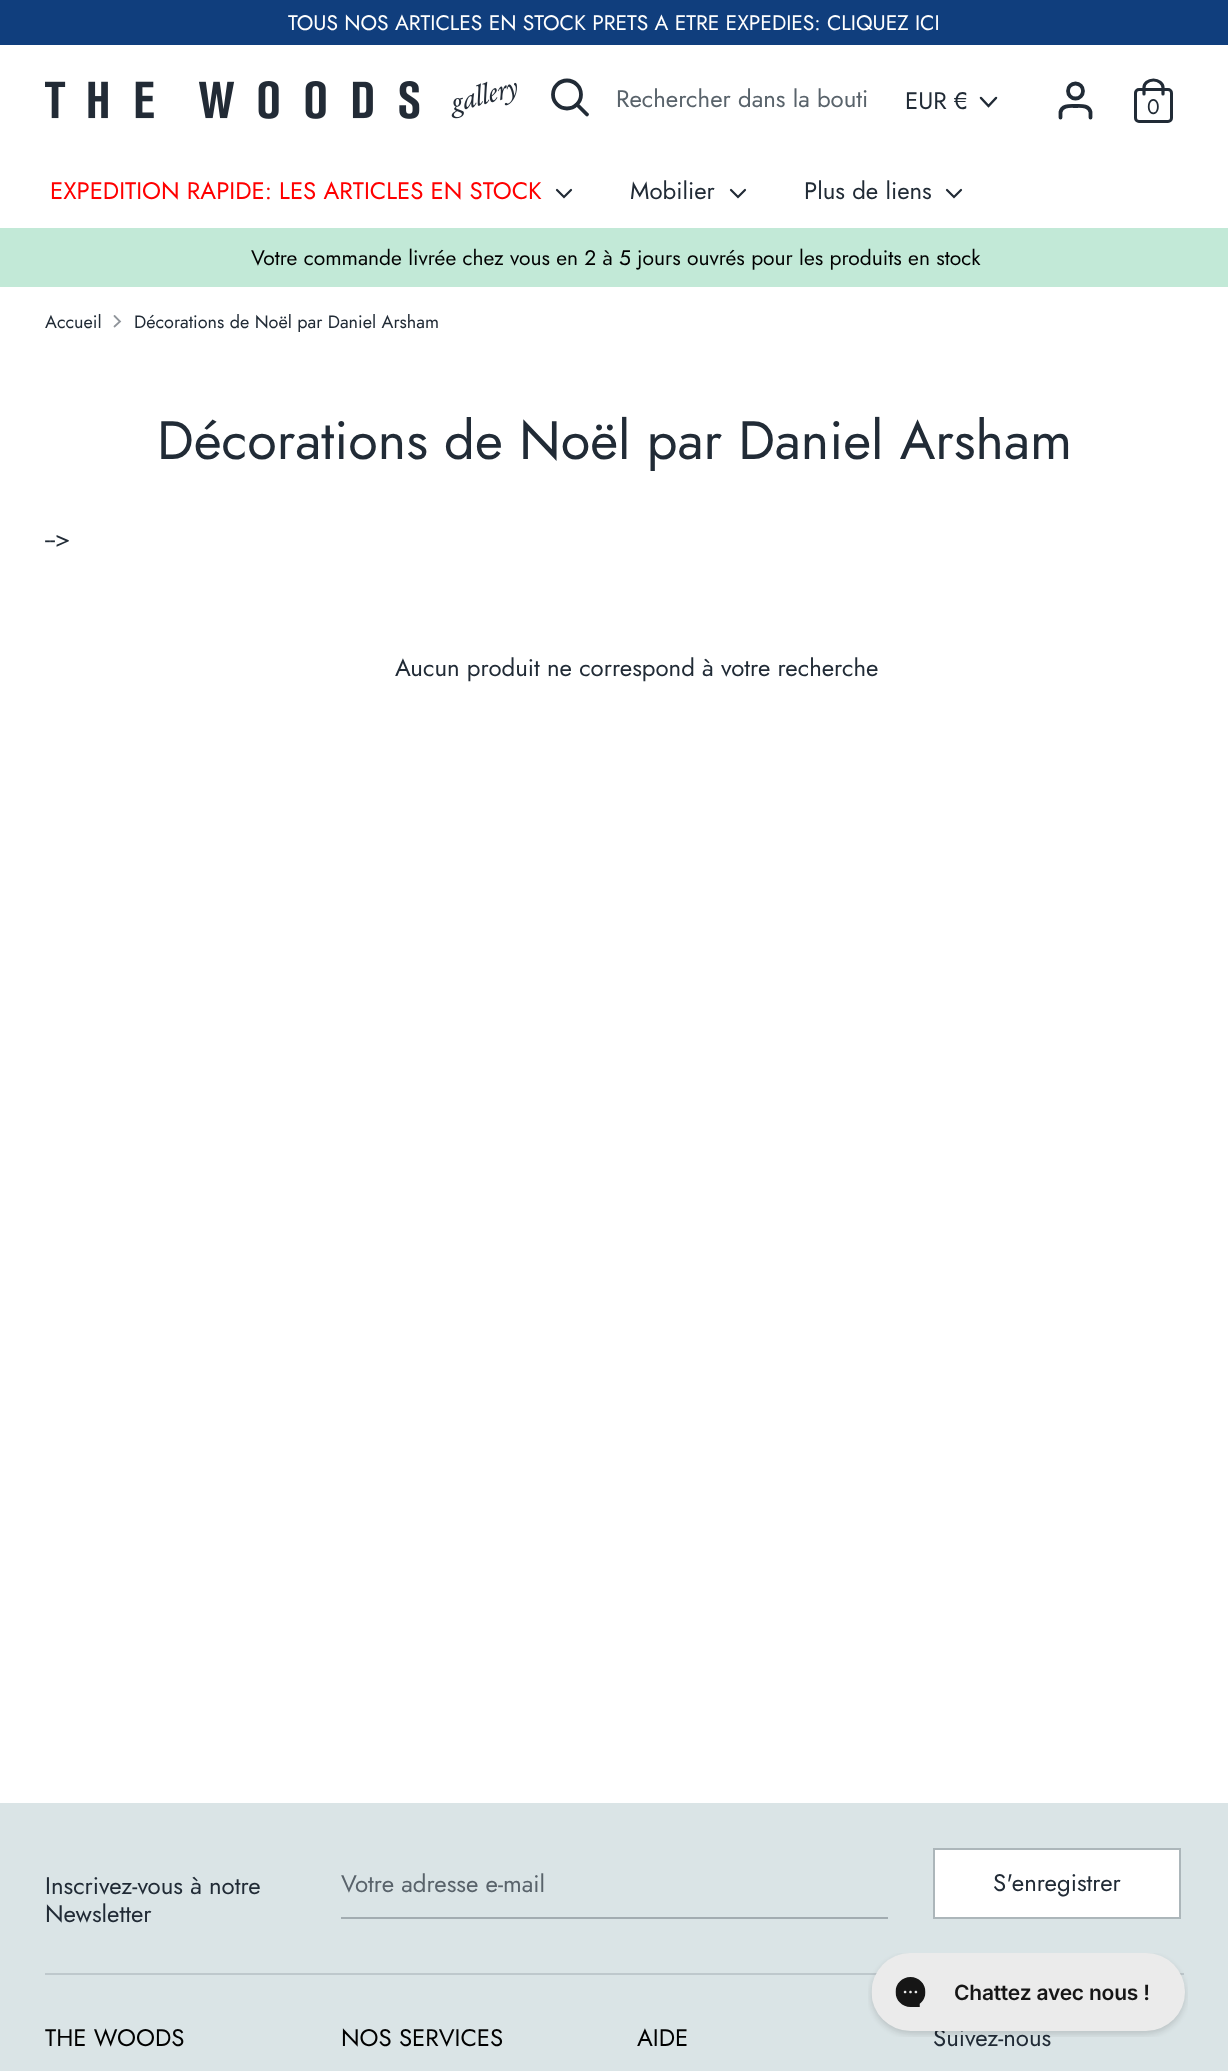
async function draw(canvas) {
  canvas.width = 1228;
  canvas.height = 2071;
  const ctx = canvas.getContext('2d');
  ctx.miterLimit = 4;
  ctx.fontKerning = 'normal';
  function label(s, x, y, font, color) {
    ctx.font = font;
    ctx.fillStyle = color;
    ctx.fillText(s, x, y);
  }
  function rect(x, y, w, h, color) {
    ctx.fillStyle = color;
    ctx.fillRect(x, y, w, h);
  }
  async function image(src, x, y, w, h) {
    const img = new Image();
    img.src = src;
    await img.decode();
    ctx.drawImage(img, x, y, w, h);
  }
  let path;

  rect(0, 0, 1228, 2071, '#fff');
  rect(0, 0, 1228, 45, '#103e7d');
  label('TOUS NOS ARTICLES EN STOCK PRETS A ETRE EXPEDIES: CLIQUEZ ICI', 288, 30, '21px Jost', '#fff');
  await image('assets/img1.png', 45, 81, 472, 38);
  ctx.beginPath();
  ctx.arc(567, 94.5, 14, 0, 2 * Math.PI);
  ctx.strokeStyle = '#212b36';
  ctx.lineWidth = 3.8;
  ctx.stroke();
  path = new Path2D('M587 114.5L577 104.5');
  ctx.lineCap = 'round';
  ctx.stroke(path);
  label('Rechercher dans la bouti', 616, 107, '24px Jost', '#59636b');
  label('EUR €', 905, 109, '24px Jost', '#212b36');
  path = new Path2D('M981 98L988.5 106L996 98');
  ctx.lineWidth = 2.5;
  ctx.stroke(path);
  path = new Path2D('M1090.5 117.5V112C1089 105 1081 106 1075.5 106C1070 106 1062 105 1060.5 112V117.5');
  ctx.lineWidth = 3.8;
  ctx.stroke(path);
  ctx.beginPath();
  ctx.arc(1075.5, 91, 7.5, 0, 2 * Math.PI);
  ctx.stroke();
  ctx.beginPath();
  ctx.roundRect(1135.5, 89.5, 36, 32, 3.5);
  ctx.lineWidth = 3;
  ctx.stroke();
  path = new Path2D('M1144 94V87.5C1144 83.5 1148 80 1153.5 80C1158.5 80 1163 83.5 1163 87.5V94');
  ctx.lineWidth = 3.2;
  ctx.stroke(path);
  label('0', 1147, 114, '21px Jost', '#212b36');
  label('EXPEDITION RAPIDE: LES ARTICLES EN STOCK', 50, 199, '24px Jost', '#f00');
  path = new Path2D('M557 190L564 197L571 190');
  ctx.lineWidth = 2.2;
  ctx.stroke(path);
  label('Mobilier', 630, 199, '24px Jost', '#212b36');
  path = new Path2D('M731 190L738 197L745 190');
  ctx.stroke(path);
  label('Plus de liens', 804, 199, '24px Jost', '#212b36');
  path = new Path2D('M947 190L954 197L961 190');
  ctx.stroke(path);
  rect(0, 228, 1228, 59, '#c2e9d7');
  label('Votre commande livrée chez vous en 2 à 5 jours ouvrés pour les produits en stock', 251, 265, '21px Jost', '#000');
  label('Accueil', 45, 328, '18px Jost', '#212b36');
  path = new Path2D('M114.5 326.5L120 321.5L114.5 316');
  ctx.strokeStyle = '#90959b';
  ctx.lineWidth = 1.8;
  ctx.stroke(path);
  label('Décorations de Noël par Daniel Arsham', 134, 328, '18px Jost', '#212b36');
  label('Décorations de Noël par Daniel Arsham', 157, 459, '54px Jost', '#212b36');
  label('-->', 45, 547, '24px Jost', '#212b36');
  label('Aucun produit ne correspond à votre recherche', 395, 676, '24px Jost', '#212b36');
  rect(0, 1803, 1228, 268, '#dae4e6');
  label('Inscrivez-vous à notre', 45, 1894, '24px Jost', '#212b36');
  label('Newsletter', 45, 1922, '24px Jost', '#212b36');
  rect(341, 1917, 547, 2, '#a2acb1');
  label('Votre adresse e-mail', 341, 1892, '24px Jost', '#59636b');
  ctx.strokeStyle = '#acb6ba';
  ctx.lineWidth = 2;
  ctx.strokeRect(934, 1849, 246, 69);
  rect(935, 1850, 244, 67, '#fff');
  label('S\'enregistrer', 993, 1891, '24px Jost', '#212b36');
  rect(45, 1973, 1139, 2, '#bec8cc');
  label('THE WOODS', 45, 2046, '24px Jost', '#000');
  label('NOS SERVICES', 341, 2046, '24px Jost', '#000');
  label('AIDE', 637, 2046, '24px Jost', '#000');
  label('Suivez-nous', 933, 2046, '24px Jost', '#212b36');
  await image('assets/img2.png', 868, 1953, 320, 84);
}

draw(document.querySelector('canvas'));
